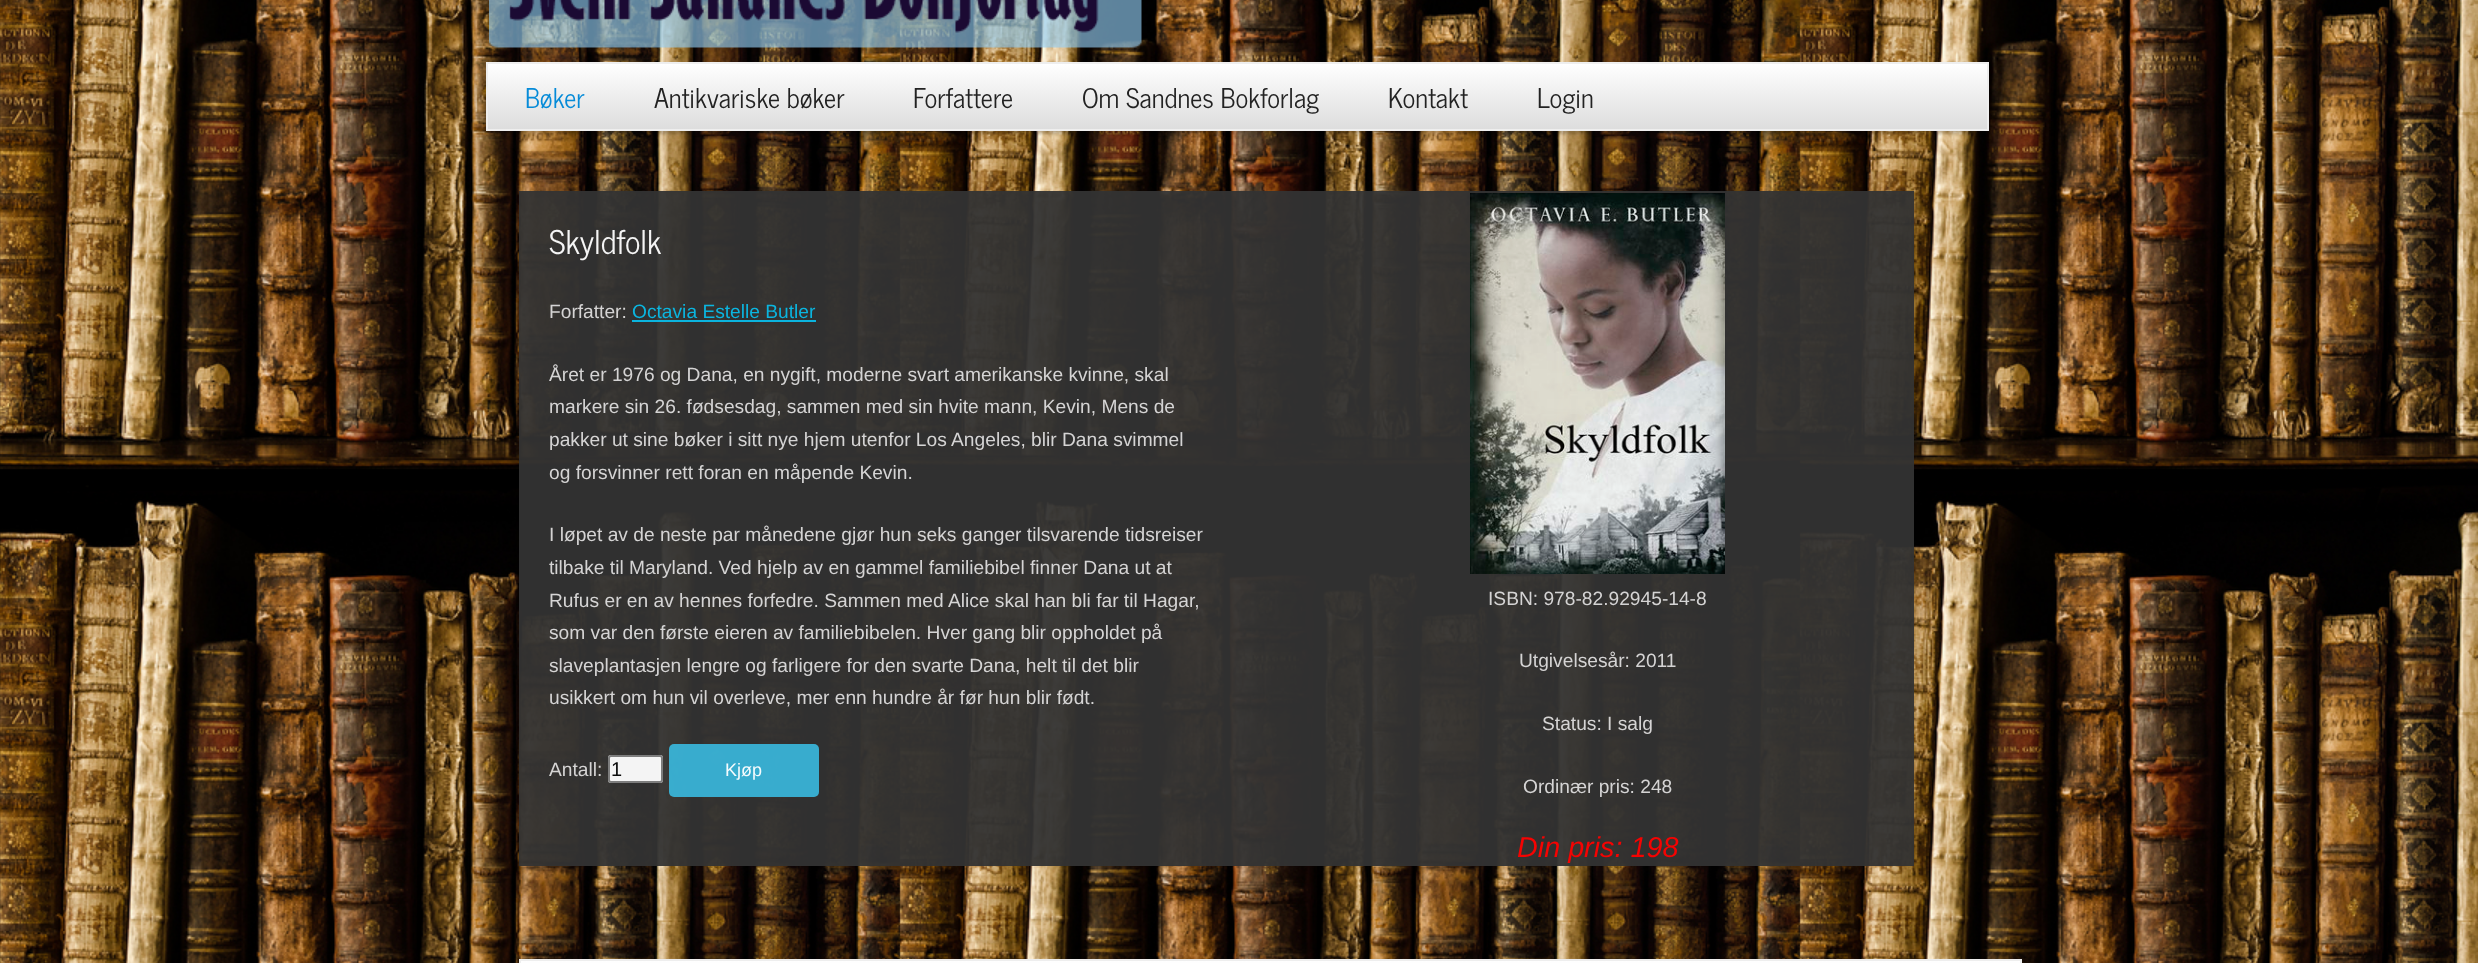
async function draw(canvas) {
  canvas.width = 2478;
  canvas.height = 963;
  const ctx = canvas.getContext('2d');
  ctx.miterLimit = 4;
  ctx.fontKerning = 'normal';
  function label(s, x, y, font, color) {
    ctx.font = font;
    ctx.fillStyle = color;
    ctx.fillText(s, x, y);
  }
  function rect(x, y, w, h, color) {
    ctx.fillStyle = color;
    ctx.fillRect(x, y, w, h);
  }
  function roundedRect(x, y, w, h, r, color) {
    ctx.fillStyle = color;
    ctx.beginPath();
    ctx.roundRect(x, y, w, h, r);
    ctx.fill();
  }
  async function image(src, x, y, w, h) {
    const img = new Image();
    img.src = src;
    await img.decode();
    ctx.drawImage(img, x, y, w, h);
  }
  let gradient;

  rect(0, 0, 2478, 963, '#fff');
  await image('assets/img1.png', 0, 0, 2478, 963);
  await image('assets/img2.png', 489, 0, 653, 48);
  ctx.fillStyle = '#00000033';
  ctx.filter = 'blur(1.5px)';
  ctx.beginPath();
  ctx.rect(486, 65, 1503, 69);
  ctx.fill();
  ctx.filter = 'none';
  gradient = ctx.createLinearGradient(1238, 63, 1238, 129);
  gradient.addColorStop(0, '#fff');
  gradient.addColorStop(1, '#ddd');
  ctx.fillStyle = gradient;
  ctx.fillRect(488, 64, 1499, 65);
  ctx.strokeStyle = '#eee';
  ctx.lineWidth = 2;
  ctx.strokeRect(487, 63, 1501, 67);
  label('Bøker', 525, 108, '26.9px News Cycle', '#068bd8');
  label('Antikvariske bøker', 654, 108, '26.9px News Cycle', '#222');
  label('Forfattere', 913, 108, '26.9px News Cycle', '#222');
  label('Om Sandnes Bokforlag', 1082, 108, '26.9px News Cycle', '#222');
  label('Kontakt', 1388, 108, '26.9px News Cycle', '#222');
  label('Login', 1537, 108, '26.9px News Cycle', '#222');
  rect(519, 191, 1395, 675, '#333333f2');
  label('Skyldfolk', 549, 254, '32.5px News Cycle', '#f5f5f5');
  label('Forfatter:', 549, 318, '19.2px Liberation Sans', '#d5d4d4');
  label('Octavia Estelle Butler', 632, 318, '19.2px Liberation Sans', '#0bb5df');
  rect(632, 320, 184, 2, '#09bce8f2');
  label('Året er 1976 og Dana, en nygift, moderne svart amerikanske kvinne, skal', 549, 381, '19.2px Liberation Sans', '#d5d4d4');
  label('markere sin 26. fødsesdag, sammen med sin hvite mann, Kevin, Mens de', 549, 413, '19.2px Liberation Sans', '#d5d4d4');
  label('pakker ut sine bøker i sitt nye hjem utenfor Los Angeles, blir Dana svimmel', 549, 446, '19.2px Liberation Sans', '#d5d4d4');
  label('og forsvinner rett foran en måpende Kevin.', 549, 479, '19.2px Liberation Sans', '#d5d4d4');
  label('I løpet av de neste par månedene gjør hun seks ganger tilsvarende tidsreiser', 549, 541, '19.2px Liberation Sans', '#d5d4d4');
  label('tilbake til Maryland. Ved hjelp av en gammel familiebibel finner Dana ut at', 549, 574, '19.2px Liberation Sans', '#d5d4d4');
  label('Rufus er en av hennes forfedre. Sammen med Alice skal han bli far til Hagar,', 549, 607, '19.2px Liberation Sans', '#d5d4d4');
  label('som var den første eieren av familiebibelen. Hver gang blir oppholdet på', 549, 639, '19.2px Liberation Sans', '#d5d4d4');
  label('slaveplantasjen lengre og farligere for den svarte Dana, helt til det blir', 549, 672, '19.2px Liberation Sans', '#d5d4d4');
  label('usikkert om hun vil overleve, mer enn hundre år før hun blir født.', 549, 704, '19.2px Liberation Sans', '#d5d4d4');
  label('Antall:', 549, 776, '19.2px Liberation Sans', '#d5d4d4');
  roundedRect(608, 755, 55, 28, 3, '#fffffff2');
  ctx.beginPath();
  ctx.roundRect(609, 756, 53, 26, 2);
  ctx.strokeStyle = '#767676f2';
  ctx.stroke();
  label('1', 611, 776, '20px Liberation Sans', '#0c0c0c');
  roundedRect(669, 744, 150, 53, 5, '#39b3d7f2');
  label('Kjøp', 725, 776, '18px Liberation Sans', '#f5fbfd');
  await image('assets/img3.png', 1470, 193, 255, 381);
  label('ISBN: 978-82.92945-14-8', 1488, 605, '19.2px Liberation Sans', '#d5d4d4');
  label('Utgivelsesår: 2011', 1519, 667, '19.2px Liberation Sans', '#d5d4d4');
  label('Status: I salg', 1542, 730, '19.2px Liberation Sans', '#d5d4d4');
  label('Ordinær pris: 248', 1523, 793, '19.2px Liberation Sans', '#d5d4d4');
  label('Din pris: 198', 1517, 857, 'italic 28.75px Liberation Sans', '#f50302');
  ctx.fillStyle = '#00000033';
  ctx.filter = 'blur(1.5px)';
  ctx.beginPath();
  ctx.rect(519, 962, 1503, 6);
  ctx.fill();
  ctx.filter = 'none';
  gradient = ctx.createLinearGradient(1271, 960, 1271, 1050);
  gradient.addColorStop(0, '#fff');
  gradient.addColorStop(1, '#ddd');
  ctx.fillStyle = gradient;
  ctx.fillRect(519, 961, 1503, 2);
  ctx.strokeStyle = '#eee';
  ctx.strokeRect(520, 960, 1501, 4);
}

draw(document.querySelector('canvas'));
